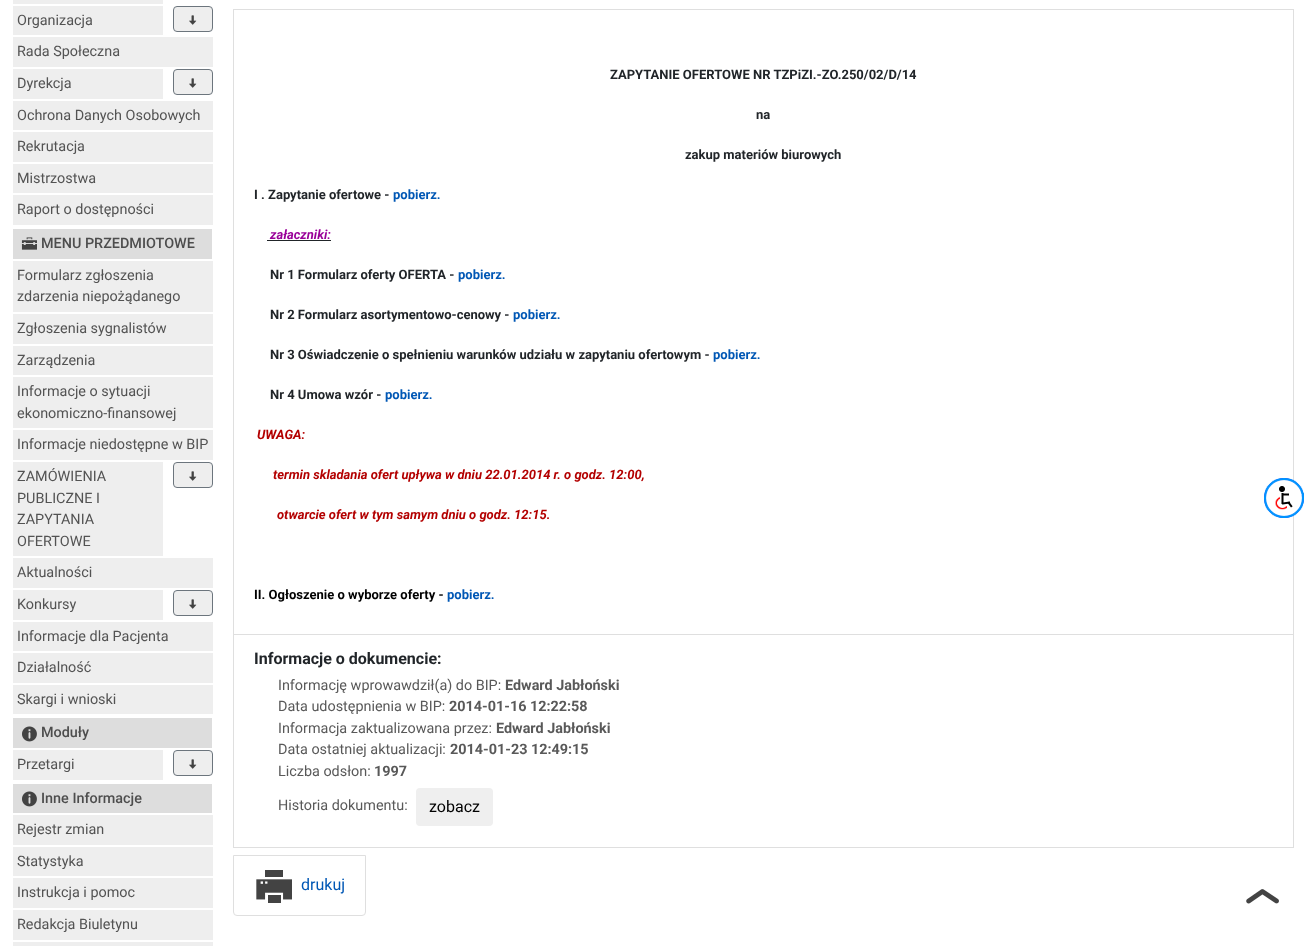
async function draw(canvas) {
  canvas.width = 1309;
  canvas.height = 946;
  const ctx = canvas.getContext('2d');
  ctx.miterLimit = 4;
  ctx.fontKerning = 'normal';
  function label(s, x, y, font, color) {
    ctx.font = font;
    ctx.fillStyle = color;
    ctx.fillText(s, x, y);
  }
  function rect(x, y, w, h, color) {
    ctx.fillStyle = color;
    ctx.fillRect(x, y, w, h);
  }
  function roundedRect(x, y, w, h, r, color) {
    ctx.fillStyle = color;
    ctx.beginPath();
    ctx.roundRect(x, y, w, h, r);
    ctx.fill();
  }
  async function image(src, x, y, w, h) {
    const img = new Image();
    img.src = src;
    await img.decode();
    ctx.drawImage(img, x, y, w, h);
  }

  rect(0, 0, 1309, 946, '#fff');
  rect(13, 0, 150, 4, '#eee');
  rect(13, 6, 150, 29, '#eee');
  label('Organizacja', 17, 25, '14.4px Roboto', '#535353');
  ctx.fillStyle = '#eee';
  ctx.beginPath();
  ctx.roundRect(173.5, 6.5, 39, 25, 3.5);
  ctx.fill();
  ctx.strokeStyle = '#6c757d';
  ctx.stroke();
  await image('assets/img1.png', 189, 15, 8, 10);
  rect(13, 37, 200, 30, '#eee');
  label('Rada Społeczna', 17, 56, '14.4px Roboto', '#535353');
  rect(13, 69, 150, 30, '#eee');
  label('Dyrekcja', 17, 88, '14.4px Roboto', '#535353');
  ctx.fillStyle = '#eee';
  ctx.beginPath();
  ctx.roundRect(173.5, 69.5, 39, 25, 3.5);
  ctx.fill();
  ctx.stroke();
  await image('assets/img1.png', 189, 78, 8, 10);
  rect(13, 101, 200, 29, '#eee');
  label('Ochrona Danych Osobowych', 17, 120, '14.4px Roboto', '#535353');
  rect(13, 132, 200, 30, '#eee');
  label('Rekrutacja', 17, 151, '14.4px Roboto', '#535353');
  rect(13, 164, 200, 29, '#eee');
  label('Mistrzostwa', 17, 183, '14.4px Roboto', '#535353');
  rect(13, 195, 200, 30, '#eee');
  label('Raport o dostępności', 17, 214, '14.4px Roboto', '#535353');
  rect(13, 229, 199, 30, '#ddd');
  await image('assets/img2.png', 21, 237, 16, 13);
  label('MENU PRZEDMIOTOWE', 41, 248, '500 14.4px Roboto', '#4d4d4d');
  rect(13, 261, 200, 51, '#eee');
  label('Formularz zgłoszenia', 17, 280, '14.4px Roboto', '#535353');
  label('zdarzenia niepożądanego', 17, 301, '14.4px Roboto', '#535353');
  rect(13, 314, 200, 30, '#eee');
  label('Zgłoszenia sygnalistów', 17, 333, '14.4px Roboto', '#535353');
  rect(13, 346, 200, 29, '#eee');
  label('Zarządzenia', 17, 365, '14.4px Roboto', '#535353');
  rect(13, 377, 200, 51, '#eee');
  label('Informacje o sytuacji', 17, 396, '14.4px Roboto', '#535353');
  label('ekonomiczno-finansowej', 17, 418, '14.4px Roboto', '#535353');
  rect(13, 430, 200, 30, '#eee');
  label('Informacje niedostępne w BIP', 17, 449, '14.4px Roboto', '#535353');
  rect(13, 462, 150, 94, '#eee');
  label('ZAMÓWIENIA', 17, 481, '14.4px Roboto', '#535353');
  label('PUBLICZNE I', 17, 503, '14.4px Roboto', '#535353');
  label('ZAPYTANIA', 17, 524, '14.4px Roboto', '#535353');
  label('OFERTOWE', 17, 546, '14.4px Roboto', '#535353');
  ctx.fillStyle = '#eee';
  ctx.beginPath();
  ctx.roundRect(173.5, 462.5, 39, 25, 3.5);
  ctx.fill();
  ctx.stroke();
  await image('assets/img1.png', 189, 471, 8, 10);
  rect(13, 558, 200, 30, '#eee');
  label('Aktualności', 17, 577, '14.4px Roboto', '#535353');
  rect(13, 590, 150, 30, '#eee');
  label('Konkursy', 17, 609, '14.4px Roboto', '#535353');
  ctx.fillStyle = '#eee';
  ctx.beginPath();
  ctx.roundRect(173.5, 590.5, 39, 25, 3.5);
  ctx.fill();
  ctx.stroke();
  await image('assets/img1.png', 189, 599, 8, 10);
  rect(13, 622, 200, 29, '#eee');
  label('Informacje dla Pacjenta', 17, 641, '14.4px Roboto', '#535353');
  rect(13, 653, 200, 30, '#eee');
  label('Działalność', 17, 672, '14.4px Roboto', '#535353');
  rect(13, 685, 200, 29, '#eee');
  label('Skargi i wnioski', 17, 704, '14.4px Roboto', '#535353');
  rect(13, 718, 199, 30, '#ddd');
  await image('assets/img3.png', 22, 726, 15, 16);
  label('Moduły', 41, 737, '500 14.4px Roboto', '#4d4d4d');
  rect(13, 750, 150, 30, '#eee');
  label('Przetargi', 17, 769, '14.4px Roboto', '#535353');
  ctx.fillStyle = '#eee';
  ctx.beginPath();
  ctx.roundRect(173.5, 750.5, 39, 25, 3.5);
  ctx.fill();
  ctx.stroke();
  await image('assets/img1.png', 189, 759, 8, 10);
  rect(13, 784, 199, 29, '#ddd');
  await image('assets/img3.png', 22, 791, 15, 16);
  label('Inne Informacje', 41, 803, '500 14.4px Roboto', '#4d4d4d');
  rect(13, 815, 200, 30, '#eee');
  label('Rejestr zmian', 17, 834, '14.4px Roboto', '#535353');
  rect(13, 847, 200, 29, '#eee');
  label('Statystyka', 17, 866, '14.4px Roboto', '#535353');
  rect(13, 878, 200, 30, '#eee');
  label('Instrukcja i pomoc', 17, 897, '14.4px Roboto', '#535353');
  rect(13, 910, 200, 30, '#eee');
  label('Redakcja Biuletynu', 17, 929, '14.4px Roboto', '#535353');
  rect(13, 942, 200, 4, '#eee');
  ctx.strokeStyle = '#dfdfdf';
  ctx.strokeRect(233.5, 9.5, 1060, 625);
  label('ZAPYTANIE OFERTOWE NR TZPiZI.-ZO.250/02/D/14', 610, 79, 'bold 13px Roboto', '#212529');
  label('na', 756, 119, 'bold 13px Roboto', '#212529');
  label('zakup materiów biurowych', 685, 159, 'bold 13px Roboto', '#212529');
  label('I . Zapytanie ofertowe -', 254, 199, 'bold 13px Roboto', '#212529');
  label('pobierz.', 393, 199, 'bold 13px Roboto', '#0057b5');
  label('załaczniki:', 270, 239, 'italic bold 13px Roboto', '#909');
  rect(267, 240, 64, 1, '#212529');
  label('Nr 1 Formularz oferty OFERTA -', 270, 279, 'bold 13px Roboto', '#212529');
  label('pobierz.', 458, 279, 'bold 13px Roboto', '#0057b5');
  label('Nr 2 Formularz asortymentowo-cenowy -', 270, 319, 'bold 13px Roboto', '#212529');
  label('pobierz.', 513, 319, 'bold 13px Roboto', '#0057b5');
  label('Nr 3 Oświadczenie o spełnieniu warunków udziału w zapytaniu ofertowym -', 270, 359, 'bold 13px Roboto', '#212529');
  label('pobierz.', 713, 359, 'bold 13px Roboto', '#0057b5');
  label('Nr 4 Umowa wzór -', 270, 399, 'bold 13px Roboto', '#212529');
  label('pobierz.', 385, 399, 'bold 13px Roboto', '#0057b5');
  label('UWAGA:', 257, 439, 'italic bold 13px Roboto', '#b30000');
  label('termin skladania ofert upływa w dniu 22.01.2014 r. o godz. 12:00,', 273, 479, 'italic bold 13px Roboto', '#b30000');
  label('otwarcie ofert w tym samym dniu o godz. 12:15.', 277, 519, 'italic bold 13px Roboto', '#b30000');
  label('II. Ogłoszenie o wyborze oferty -', 254, 599, 'bold 13px Roboto', '#000');
  label('pobierz.', 447, 599, 'bold 13px Roboto', '#0057b5');
  ctx.strokeRect(233.5, 634.5, 1060, 213);
  label('Informacje o dokumencie:', 254, 664, 'bold 16px Roboto', '#212529');
  label('Informację wprowawdził(a) do BIP:', 278, 690, '14.4px Roboto', '#595959');
  label('Edward Jabłoński', 505, 690, 'bold 14.4px Roboto', '#595959');
  label('Data udostępnienia w BIP:', 278, 711, '14.4px Roboto', '#595959');
  label('2014-01-16 12:22:58', 449, 711, 'bold 14.4px Roboto', '#595959');
  label('Informacja zaktualizowana przez:', 278, 733, '14.4px Roboto', '#595959');
  label('Edward Jabłoński', 496, 733, 'bold 14.4px Roboto', '#595959');
  label('Data ostatniej aktualizacji:', 278, 754, '14.4px Roboto', '#595959');
  label('2014-01-23 12:49:15', 450, 754, 'bold 14.4px Roboto', '#595959');
  label('Liczba odsłon:', 278, 776, '14.4px Roboto', '#595959');
  label('1997', 374, 776, 'bold 14.4px Roboto', '#595959');
  label('Historia dokumentu:', 278, 810, '14.4px Roboto', '#595959');
  roundedRect(416, 788, 77, 38, 4, '#efefef');
  label('zobacz', 429, 812, '16px Roboto', '#000');
  ctx.beginPath();
  ctx.roundRect(233.5, 855.5, 132, 60, [0, 0, 3.5, 3.5]);
  ctx.stroke();
  await image('assets/img4.png', 256, 870, 36, 33);
  label('drukuj', 301, 890, '16px Roboto', '#0057b5');
  await image('assets/img5.png', 1264, 478, 40, 40);
  await image('assets/img6.png', 1246, 889, 33, 15);
}

draw(document.querySelector('canvas'));
